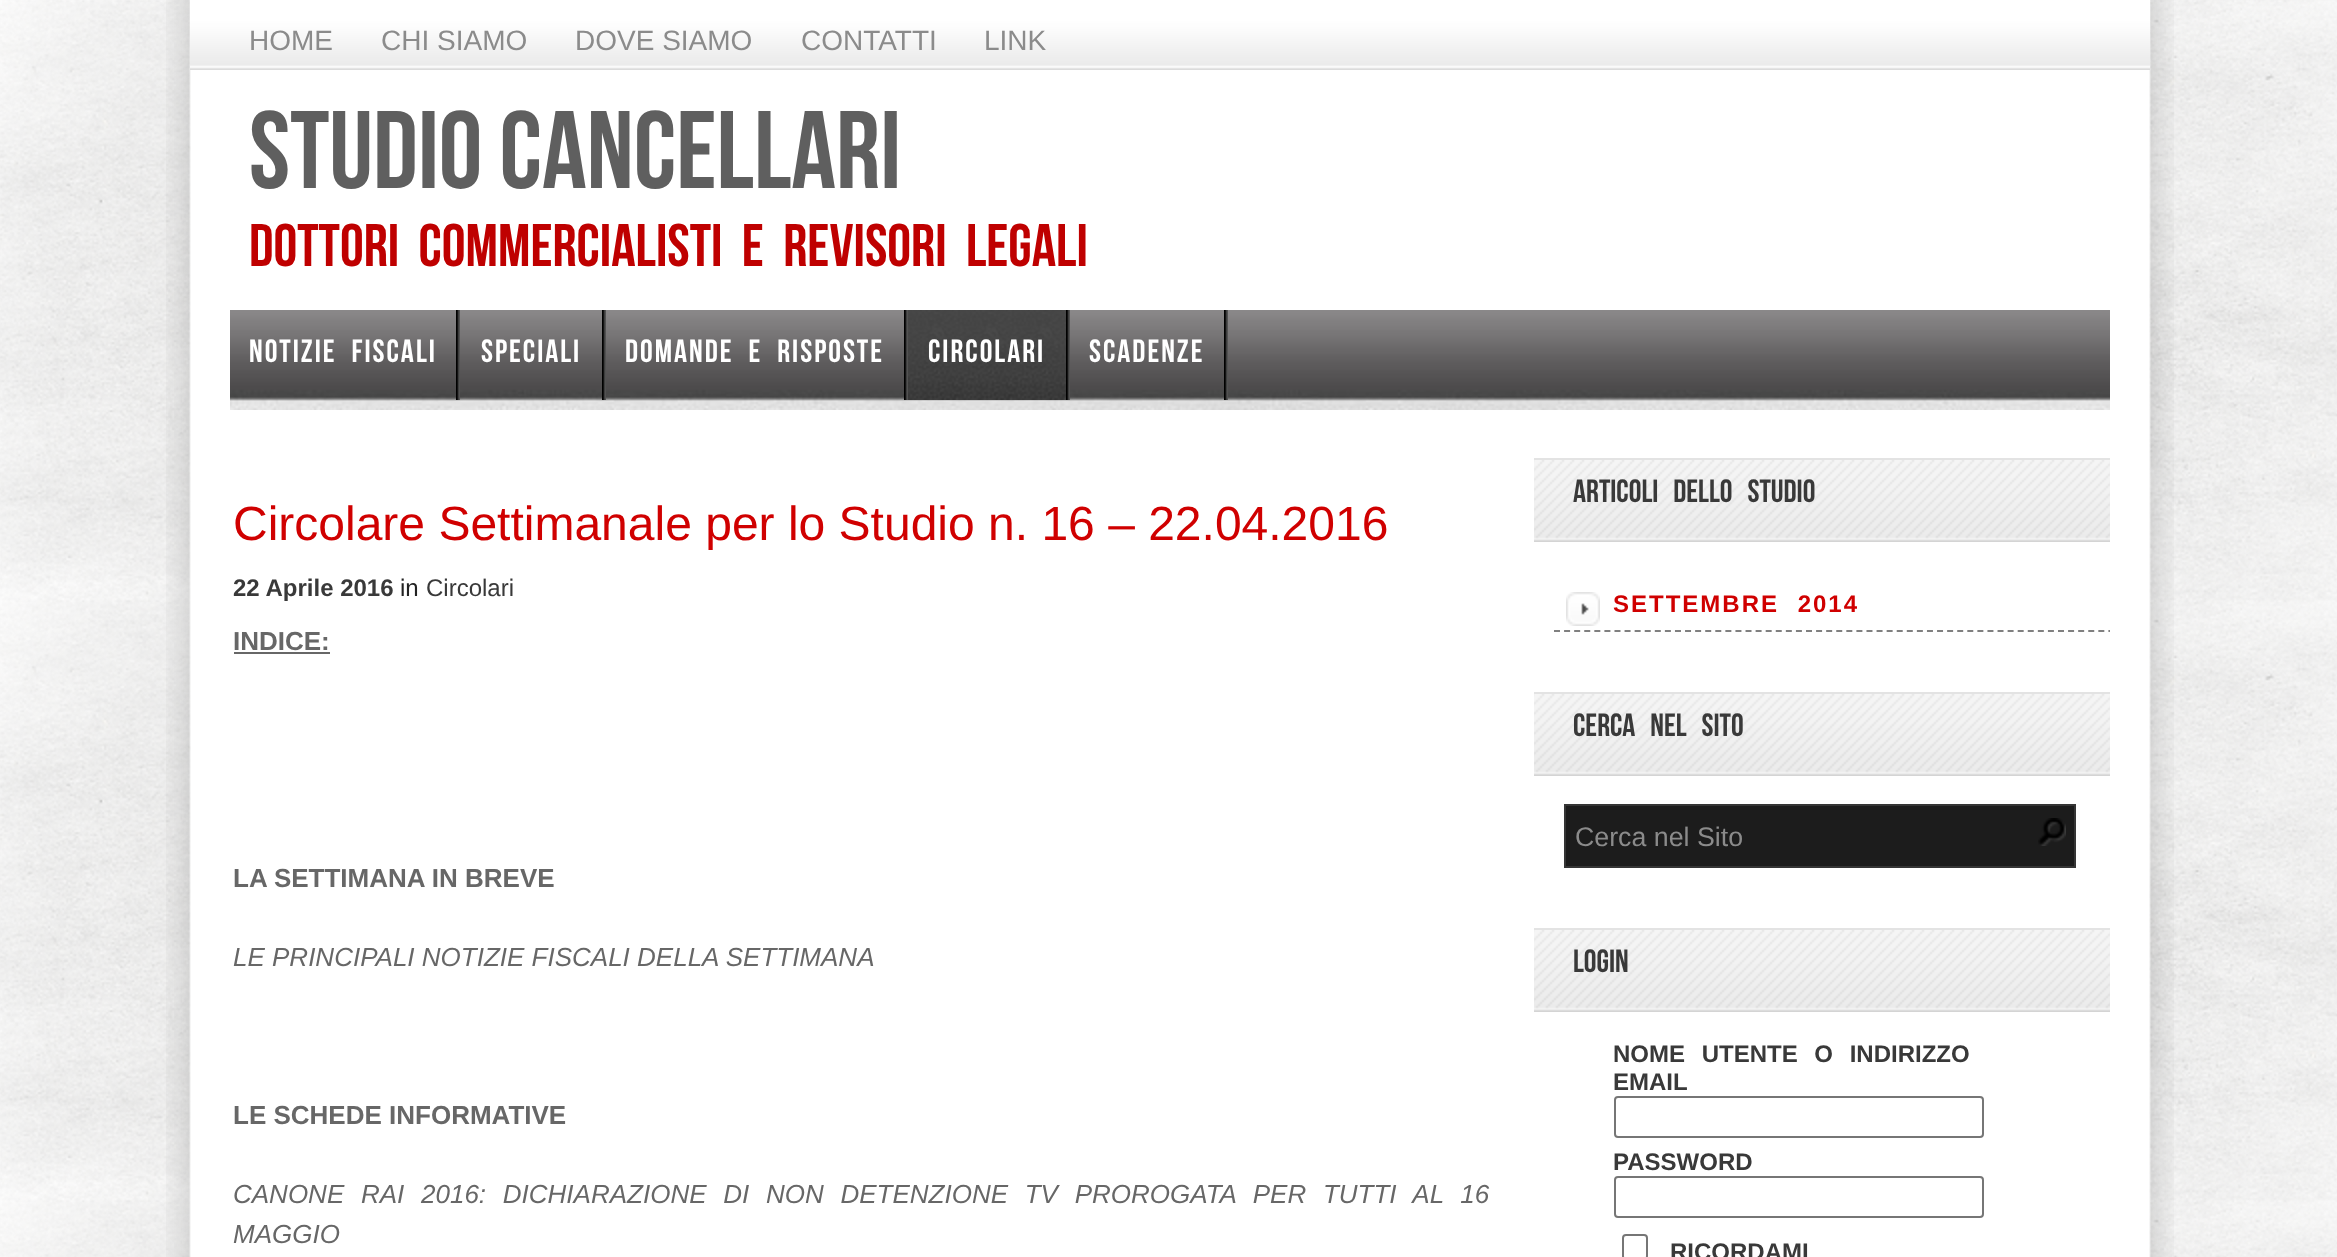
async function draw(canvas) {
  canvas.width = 2337;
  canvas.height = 1257;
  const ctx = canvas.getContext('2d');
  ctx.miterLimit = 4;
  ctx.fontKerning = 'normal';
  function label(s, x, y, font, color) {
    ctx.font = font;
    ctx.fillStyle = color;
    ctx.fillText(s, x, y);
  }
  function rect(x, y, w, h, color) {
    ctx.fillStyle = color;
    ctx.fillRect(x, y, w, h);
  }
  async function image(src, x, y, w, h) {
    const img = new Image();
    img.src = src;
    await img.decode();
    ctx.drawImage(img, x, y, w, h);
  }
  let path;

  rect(0, 0, 2337, 1257, '#fff');
  await image('assets/img1.png', 0, 0, 2337, 1257);
  await image('assets/img2.png', 166, 0, 2008, 1257);
  await image('assets/img3.png', 190, 0, 1960, 70);
  label('HOME', 249, 50, '28px Liberation Sans', '#8b8b8b');
  label('CHI SIAMO', 381, 50, '28px Liberation Sans', '#8b8b8b');
  label('DOVE SIAMO', 575, 50, '28px Liberation Sans', '#8b8b8b');
  label('CONTATTI', 801, 50, '28px Liberation Sans', '#8b8b8b');
  label('LINK', 984, 50, '28px Liberation Sans', '#8b8b8b');
  label('STUDIO CANCELLARI', 249, 188, '110px Bebas Neue', '#5f5f5f');
  ctx.wordSpacing = '10px';
  label('dottori commercialisti e revisori legali', 249, 266, '60px Bebas Neue', '#bf0000');
  await image('assets/img4.png', 230, 310, 1880, 100);
  await image('assets/img5.png', 456, 310, 4, 90);
  ctx.letterSpacing = '2px';
  ctx.wordSpacing = '8px';
  label('NOTIZIE FISCALI', 249, 362, '32px Bebas Neue', '#fff');
  await image('assets/img5.png', 602, 310, 4, 90);
  ctx.wordSpacing = '0px';
  label('SPECIALI', 481, 362, '32px Bebas Neue', '#fff');
  await image('assets/img5.png', 904, 310, 4, 90);
  ctx.wordSpacing = '8px';
  label('DOMANDE E RISPOSTE', 625, 362, '32px Bebas Neue', '#fff');
  await image('assets/img5.png', 1066, 310, 4, 90);
  await image('assets/img6.png', 908, 310, 158, 90);
  ctx.wordSpacing = '0px';
  label('CIRCOLARI', 928, 362, '32px Bebas Neue', '#fff');
  await image('assets/img5.png', 1224, 310, 4, 90);
  label('SCADENZE', 1089, 362, '32px Bebas Neue', '#fff');
  ctx.letterSpacing = '0px';
  label('Circolare Settimanale per lo Studio n. 16 – 22.04.2016', 233, 540, '48px Liberation Sans', '#d00000');
  label('22 Aprile 2016', 233, 596, 'bold 24px Liberation Sans', '#393939');
  label('in', 400, 596, '24px Liberation Sans', '#222');
  label('Circolari', 426, 596, '24px Liberation Sans', '#393939');
  label('INDICE:', 233, 650, 'bold 26px Liberation Sans', '#676767');
  rect(234, 652, 96, 2, '#676767');
  label('LA SETTIMANA IN BREVE', 233, 887, 'bold 26px Liberation Sans', '#676767');
  label('LE PRINCIPALI NOTIZIE FISCALI DELLA SETTIMANA', 233, 966, 'italic 26px Liberation Sans', '#676767');
  label('LE SCHEDE INFORMATIVE', 233, 1124, 'bold 26px Liberation Sans', '#676767');
  ctx.wordSpacing = '9.5px';
  label('CANONE RAI 2016: DICHIARAZIONE DI NON DETENZIONE TV PROROGATA PER TUTTI AL 16', 233, 1203, 'italic 26px Liberation Sans', '#676767');
  ctx.wordSpacing = '0px';
  label('MAGGIO', 233, 1243, 'italic 26px Liberation Sans', '#676767');
  await image('assets/img7.png', 1534, 460, 576, 82);
  rect(1534, 458, 576, 2, '#e3e3e3');
  ctx.wordSpacing = '10px';
  label('ARTICOLI DELLO STUDIO', 1573, 502, '32px Bebas Neue', '#393939');
  await image('assets/img8.png', 1566, 592, 34, 34);
  ctx.save();
  ctx.beginPath();
  ctx.rect(230, 70, 1880, 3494);
  ctx.clip();
  path = new Path2D('M1554 631H2134');
  ctx.strokeStyle = '#808080';
  ctx.lineWidth = 2;
  ctx.setLineDash([6, 4.08]);
  ctx.stroke(path);
  ctx.restore();
  ctx.letterSpacing = '2px';
  label('SETTEMBRE 2014', 1613, 612, 'bold 24px Liberation Sans', '#d00000');
  await image('assets/img7.png', 1534, 694, 576, 82);
  rect(1534, 692, 576, 2, '#e3e3e3');
  ctx.letterSpacing = '0px';
  label('CERCA NEL SITO', 1573, 736, '32px Bebas Neue', '#393939');
  ctx.fillStyle = '#1c1c1c';
  ctx.beginPath();
  ctx.rect(1565, 805, 510, 62);
  ctx.fill();
  ctx.strokeStyle = '#353535';
  ctx.lineWidth = 2;
  ctx.stroke();
  ctx.wordSpacing = '0px';
  label('Cerca nel Sito', 1575, 846, '26.75px Liberation Sans', '#8b8b8b');
  await image('assets/img9.png', 2038, 818, 28, 28);
  await image('assets/img7.png', 1534, 930, 576, 82);
  rect(1534, 928, 576, 2, '#e3e3e3');
  label('LOGIN', 1573, 972, '32px Bebas Neue', '#393939');
  ctx.wordSpacing = '10px';
  label('NOME UTENTE O INDIRIZZO', 1613, 1062, 'bold 24px Liberation Sans', '#393939');
  ctx.wordSpacing = '0px';
  label('EMAIL', 1613, 1090, 'bold 24px Liberation Sans', '#393939');
  ctx.beginPath();
  ctx.roundRect(1615, 1097, 368, 40, 3);
  ctx.strokeStyle = '#767676';
  ctx.stroke();
  label('PASSWORD', 1613, 1170, 'bold 24px Liberation Sans', '#393939');
  ctx.beginPath();
  ctx.roundRect(1615, 1177, 368, 40, 3);
  ctx.stroke();
  ctx.beginPath();
  ctx.roundRect(1623, 1235, 24, 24, 3);
  ctx.stroke();
  label('RICORDAMI', 1670, 1260, 'bold 24px Liberation Sans', '#393939');
}

draw(document.querySelector('canvas'));
